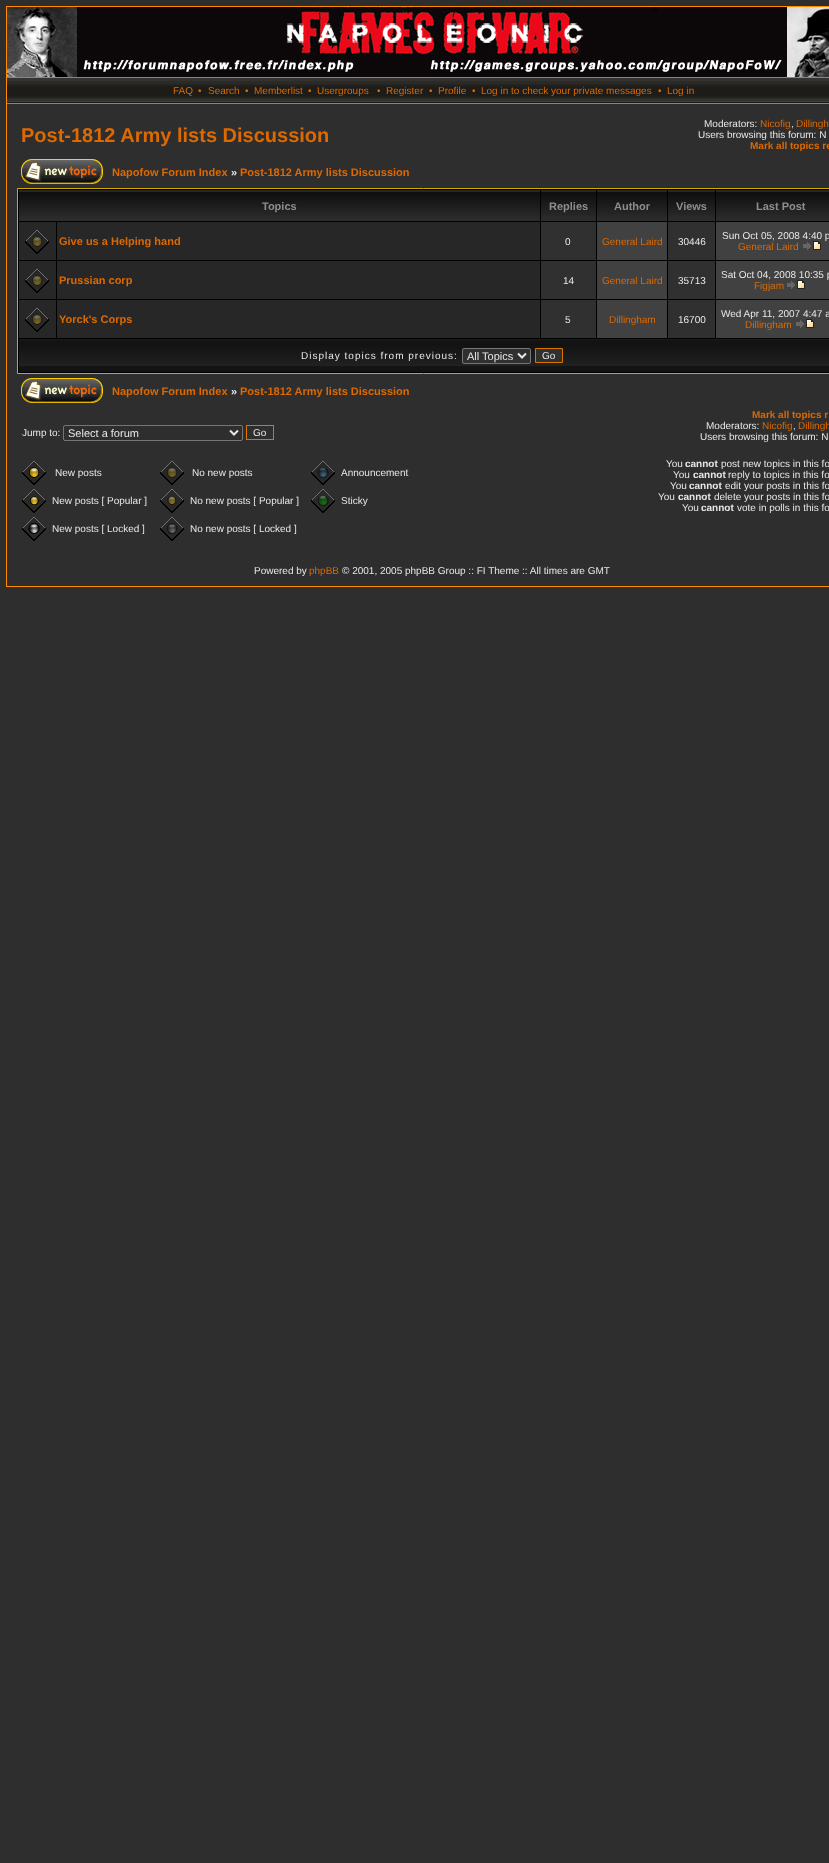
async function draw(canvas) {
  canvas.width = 829;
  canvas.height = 1863;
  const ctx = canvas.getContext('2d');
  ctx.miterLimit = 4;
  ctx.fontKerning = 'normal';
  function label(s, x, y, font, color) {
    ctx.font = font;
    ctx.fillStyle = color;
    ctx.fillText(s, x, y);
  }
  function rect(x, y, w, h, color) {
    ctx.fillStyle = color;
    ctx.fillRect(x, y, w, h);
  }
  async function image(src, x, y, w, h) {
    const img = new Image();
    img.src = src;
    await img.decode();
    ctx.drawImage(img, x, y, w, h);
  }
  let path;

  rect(0, 0, 829, 1863, '#2e2e2e');
  ctx.strokeStyle = '#ff8c00';
  ctx.strokeRect(6.5, 6.5, 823, 580);
  await image('assets/img1.png', 7, 7, 822, 70);
  rect(7, 102, 822, 1, '#1d1c19');
  await image('assets/img2.png', 7, 78, 822, 24);
  rect(7, 77, 822, 1, '#d77700');
  rect(7, 103, 822, 1, '#d77700');
  label('FAQ', 173, 94, '10px Liberation Sans', '#dd6900');
  label('•', 198, 94, '10px Liberation Sans', '#dd6900');
  label('Search', 208, 94, '10px Liberation Sans', '#dd6900');
  label('•', 245, 94, '10px Liberation Sans', '#dd6900');
  label('Memberlist', 254, 94, '10px Liberation Sans', '#dd6900');
  label('•', 308, 94, '10px Liberation Sans', '#dd6900');
  label('Usergroups', 317, 94, '10px Liberation Sans', '#dd6900');
  label('•', 377, 94, '10px Liberation Sans', '#dd6900');
  label('Register', 386, 94, '10px Liberation Sans', '#dd6900');
  label('•', 429, 94, '10px Liberation Sans', '#dd6900');
  label('Profile', 438, 94, '10px Liberation Sans', '#dd6900');
  label('•', 472, 94, '10px Liberation Sans', '#dd6900');
  label('Log in to check your private messages', 481, 94, '10px Liberation Sans', '#dd6900');
  label('•', 658, 94, '10px Liberation Sans', '#dd6900');
  label('Log in', 667, 94, '10px Liberation Sans', '#dd6900');
  label('Post-1812 Army lists Discussion', 21, 142, 'bold 20px Liberation Sans', '#dd6900');
  label('Moderators:', 704, 127, '10px Liberation Sans', '#e7e7e7');
  label('Nicofig', 760, 127, '10px Liberation Sans', '#dd6900');
  label(',', 791, 127, '10px Liberation Sans', '#e7e7e7');
  label('Dillingh', 796, 127, '10px Liberation Sans', '#dd6900');
  label('Users browsing this forum: N', 698, 138, '10px Liberation Sans', '#e7e7e7');
  label('Mark all topics re', 750, 149, 'bold 10px Liberation Sans', '#dd6900');
  await image('assets/img3.png', 21, 159, 82, 25);
  label('Napofow Forum Index', 112, 176, 'bold 11px Liberation Sans', '#dd6900');
  label('»', 231, 176, 'bold 11px Liberation Sans', '#e7e7e7');
  label('Post-1812 Army lists Discussion', 240, 176, 'bold 11px Liberation Sans', '#dd6900');
  ctx.fillStyle = '#010101';
  ctx.beginPath();
  ctx.rect(17.5, 188.5, 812, 185);
  ctx.fill();
  ctx.strokeStyle = '#d2a900';
  ctx.stroke();
  await image('assets/img4.png', 19, 190, 521, 31);
  label('Topics', 262, 210, 'bold 11px Liberation Sans', '#8e8e8e');
  await image('assets/img5.png', 541, 190, 55, 31);
  label('Replies', 549, 210, 'bold 11px Liberation Sans', '#8e8e8e');
  await image('assets/img6.png', 597, 190, 70, 31);
  label('Author', 614, 210, 'bold 11px Liberation Sans', '#8e8e8e');
  await image('assets/img7.png', 668, 190, 47, 31);
  label('Views', 676, 210, 'bold 11px Liberation Sans', '#8e8e8e');
  await image('assets/img8.png', 716, 190, 113, 31);
  label('Last Post', 756, 210, 'bold 11px Liberation Sans', '#8e8e8e');
  rect(19, 222, 37, 38, '#272727');
  await image('assets/img9.png', 25, 230, 24, 24);
  rect(57, 222, 483, 38, '#272727');
  label('Give us a Helping hand', 59, 245, 'bold 11px Liberation Sans', '#dd6900');
  rect(541, 222, 55, 38, '#303030');
  label('0', 565, 245, '10px Liberation Sans', '#e7e7e7');
  rect(597, 222, 70, 38, '#414141');
  label('General Laird', 602, 245, '10px Liberation Sans', '#dd6900');
  rect(668, 222, 47, 38, '#303030');
  label('30446', 678, 245, '10px Liberation Sans', '#e7e7e7');
  rect(716, 222, 113, 38, '#414141');
  label('Sun Oct 05, 2008 4:40 p', 722, 239, '10px Liberation Sans', '#e7e7e7');
  label('General Laird', 738, 250, '10px Liberation Sans', '#dd6900');
  await image('assets/img10.png', 803, 241, 18, 9);
  rect(19, 261, 37, 38, '#272727');
  await image('assets/img9.png', 25, 269, 24, 24);
  rect(57, 261, 483, 38, '#272727');
  label('Prussian corp', 59, 284, 'bold 11px Liberation Sans', '#dd6900');
  rect(541, 261, 55, 38, '#303030');
  label('14', 563, 284, '10px Liberation Sans', '#e7e7e7');
  rect(597, 261, 70, 38, '#414141');
  label('General Laird', 602, 284, '10px Liberation Sans', '#dd6900');
  rect(668, 261, 47, 38, '#303030');
  label('35713', 678, 284, '10px Liberation Sans', '#e7e7e7');
  rect(716, 261, 113, 38, '#414141');
  label('Sat Oct 04, 2008 10:35 p', 721, 278, '10px Liberation Sans', '#e7e7e7');
  label('Figjam', 754, 289, '10px Liberation Sans', '#dd6900');
  await image('assets/img10.png', 787, 280, 18, 9);
  rect(19, 300, 37, 38, '#272727');
  await image('assets/img9.png', 25, 308, 24, 24);
  rect(57, 300, 483, 38, '#272727');
  label('Yorck\'s Corps', 59, 323, 'bold 11px Liberation Sans', '#dd6900');
  rect(541, 300, 55, 38, '#303030');
  label('5', 565, 323, '10px Liberation Sans', '#e7e7e7');
  rect(597, 300, 70, 38, '#414141');
  label('Dillingham', 609, 323, '10px Liberation Sans', '#dd6900');
  rect(668, 300, 47, 38, '#303030');
  label('16700', 678, 323, '10px Liberation Sans', '#e7e7e7');
  rect(716, 300, 113, 38, '#414141');
  label('Wed Apr 11, 2007 4:47 a', 721, 317, '10px Liberation Sans', '#e7e7e7');
  label('Dillingham', 745, 328, '10px Liberation Sans', '#dd6900');
  await image('assets/img10.png', 796, 319, 18, 9);
  rect(19, 339, 810, 1, '#191919');
  await image('assets/img11.png', 19, 340, 810, 32);
  ctx.letterSpacing = '1px';
  label('Display topics from previous:', 301, 359, '10px Liberation Sans', '#e7e7e7');
  ctx.fillStyle = '#303030';
  ctx.beginPath();
  ctx.roundRect(462.5, 348.5, 68, 15, 1.5);
  ctx.fill();
  ctx.strokeStyle = '#767676';
  ctx.stroke();
  path = new Path2D('M518 353.5L522 357.5L526 353.5');
  ctx.strokeStyle = '#e7e7e7';
  ctx.lineWidth = 2;
  ctx.stroke(path);
  ctx.letterSpacing = '0px';
  label('All Topics', 467, 360, '11px Liberation Sans', '#e7e7e7');
  ctx.fillStyle = '#303030';
  ctx.beginPath();
  ctx.rect(535.5, 348.5, 27, 14);
  ctx.fill();
  ctx.strokeStyle = '#d77700';
  ctx.lineWidth = 1;
  ctx.stroke();
  label('Go', 542, 359, '10px Liberation Sans', '#e7e7e7');
  await image('assets/img3.png', 21, 378, 82, 25);
  label('Napofow Forum Index', 112, 395, 'bold 11px Liberation Sans', '#dd6900');
  label('»', 231, 395, 'bold 11px Liberation Sans', '#e7e7e7');
  label('Post-1812 Army lists Discussion', 240, 395, 'bold 11px Liberation Sans', '#dd6900');
  label('Jump to:', 22, 436, '10px Liberation Sans', '#e7e7e7');
  ctx.beginPath();
  ctx.roundRect(63.5, 425.5, 179, 15, 1.5);
  ctx.strokeStyle = '#767676';
  ctx.stroke();
  path = new Path2D('M230 430.5L234 434.5L238 430.5');
  ctx.strokeStyle = '#e7e7e7';
  ctx.lineWidth = 2;
  ctx.stroke(path);
  label('Select a forum', 68, 437, '11px Liberation Sans', '#e7e7e7');
  ctx.strokeStyle = '#d77700';
  ctx.lineWidth = 1;
  ctx.strokeRect(246.5, 425.5, 27, 14);
  label('Go', 253, 436, '10px Liberation Sans', '#e7e7e7');
  label('Mark all topics r', 752, 418, 'bold 10px Liberation Sans', '#dd6900');
  label('Moderators:', 706, 429, '10px Liberation Sans', '#e7e7e7');
  label('Nicofig', 762, 429, '10px Liberation Sans', '#dd6900');
  label(',', 793, 429, '10px Liberation Sans', '#e7e7e7');
  label('Dillingh', 798, 429, '10px Liberation Sans', '#dd6900');
  label('Users browsing this forum: N', 700, 440, '10px Liberation Sans', '#e7e7e7');
  await image('assets/img12.png', 22, 461, 24, 24);
  label('New posts', 55, 476, '10px Liberation Sans', '#e7e7e7');
  await image('assets/img13.png', 160, 461, 24, 24);
  label('No new posts', 192, 476, '10px Liberation Sans', '#e7e7e7');
  await image('assets/img14.png', 311, 461, 24, 24);
  label('Announcement', 341, 476, '10px Liberation Sans', '#e7e7e7');
  await image('assets/img15.png', 22, 489, 24, 24);
  label('New posts [ Popular ]', 52, 504, '10px Liberation Sans', '#e7e7e7');
  await image('assets/img16.png', 160, 489, 24, 24);
  label('No new posts [ Popular ]', 190, 504, '10px Liberation Sans', '#e7e7e7');
  await image('assets/img17.png', 311, 489, 24, 24);
  label('Sticky', 341, 504, '10px Liberation Sans', '#e7e7e7');
  await image('assets/img18.png', 22, 517, 24, 24);
  label('New posts [ Locked ]', 52, 532, '10px Liberation Sans', '#e7e7e7');
  await image('assets/img19.png', 160, 517, 24, 24);
  label('No new posts [ Locked ]', 190, 532, '10px Liberation Sans', '#e7e7e7');
  label('You', 666, 467, '10px Liberation Sans', '#e7e7e7');
  label('cannot', 685, 467, 'bold 10px Liberation Sans', '#e7e7e7');
  label('post new topics in this fo', 721, 467, '10px Liberation Sans', '#e7e7e7');
  label('You', 673, 478, '10px Liberation Sans', '#e7e7e7');
  label('cannot', 693, 478, 'bold 10px Liberation Sans', '#e7e7e7');
  label('reply to topics in this fo', 728, 478, '10px Liberation Sans', '#e7e7e7');
  label('You', 670, 489, '10px Liberation Sans', '#e7e7e7');
  label('cannot', 689, 489, 'bold 10px Liberation Sans', '#e7e7e7');
  label('edit your posts in this fo', 725, 489, '10px Liberation Sans', '#e7e7e7');
  label('You', 658, 500, '10px Liberation Sans', '#e7e7e7');
  label('cannot', 678, 500, 'bold 10px Liberation Sans', '#e7e7e7');
  label('delete your posts in this fo', 714, 500, '10px Liberation Sans', '#e7e7e7');
  label('You', 682, 511, '10px Liberation Sans', '#e7e7e7');
  label('cannot', 701, 511, 'bold 10px Liberation Sans', '#e7e7e7');
  label('vote in polls in this fo', 737, 511, '10px Liberation Sans', '#e7e7e7');
  label('Powered by', 254, 574, '10px Liberation Sans', '#e7e7e7');
  label('phpBB', 309, 574, '10px Liberation Sans', '#dd6900');
  label('© 2001, 2005 phpBB Group :: FI Theme :: All times are GMT', 342, 574, '10px Liberation Sans', '#e7e7e7');
}

draw(document.querySelector('canvas'));
